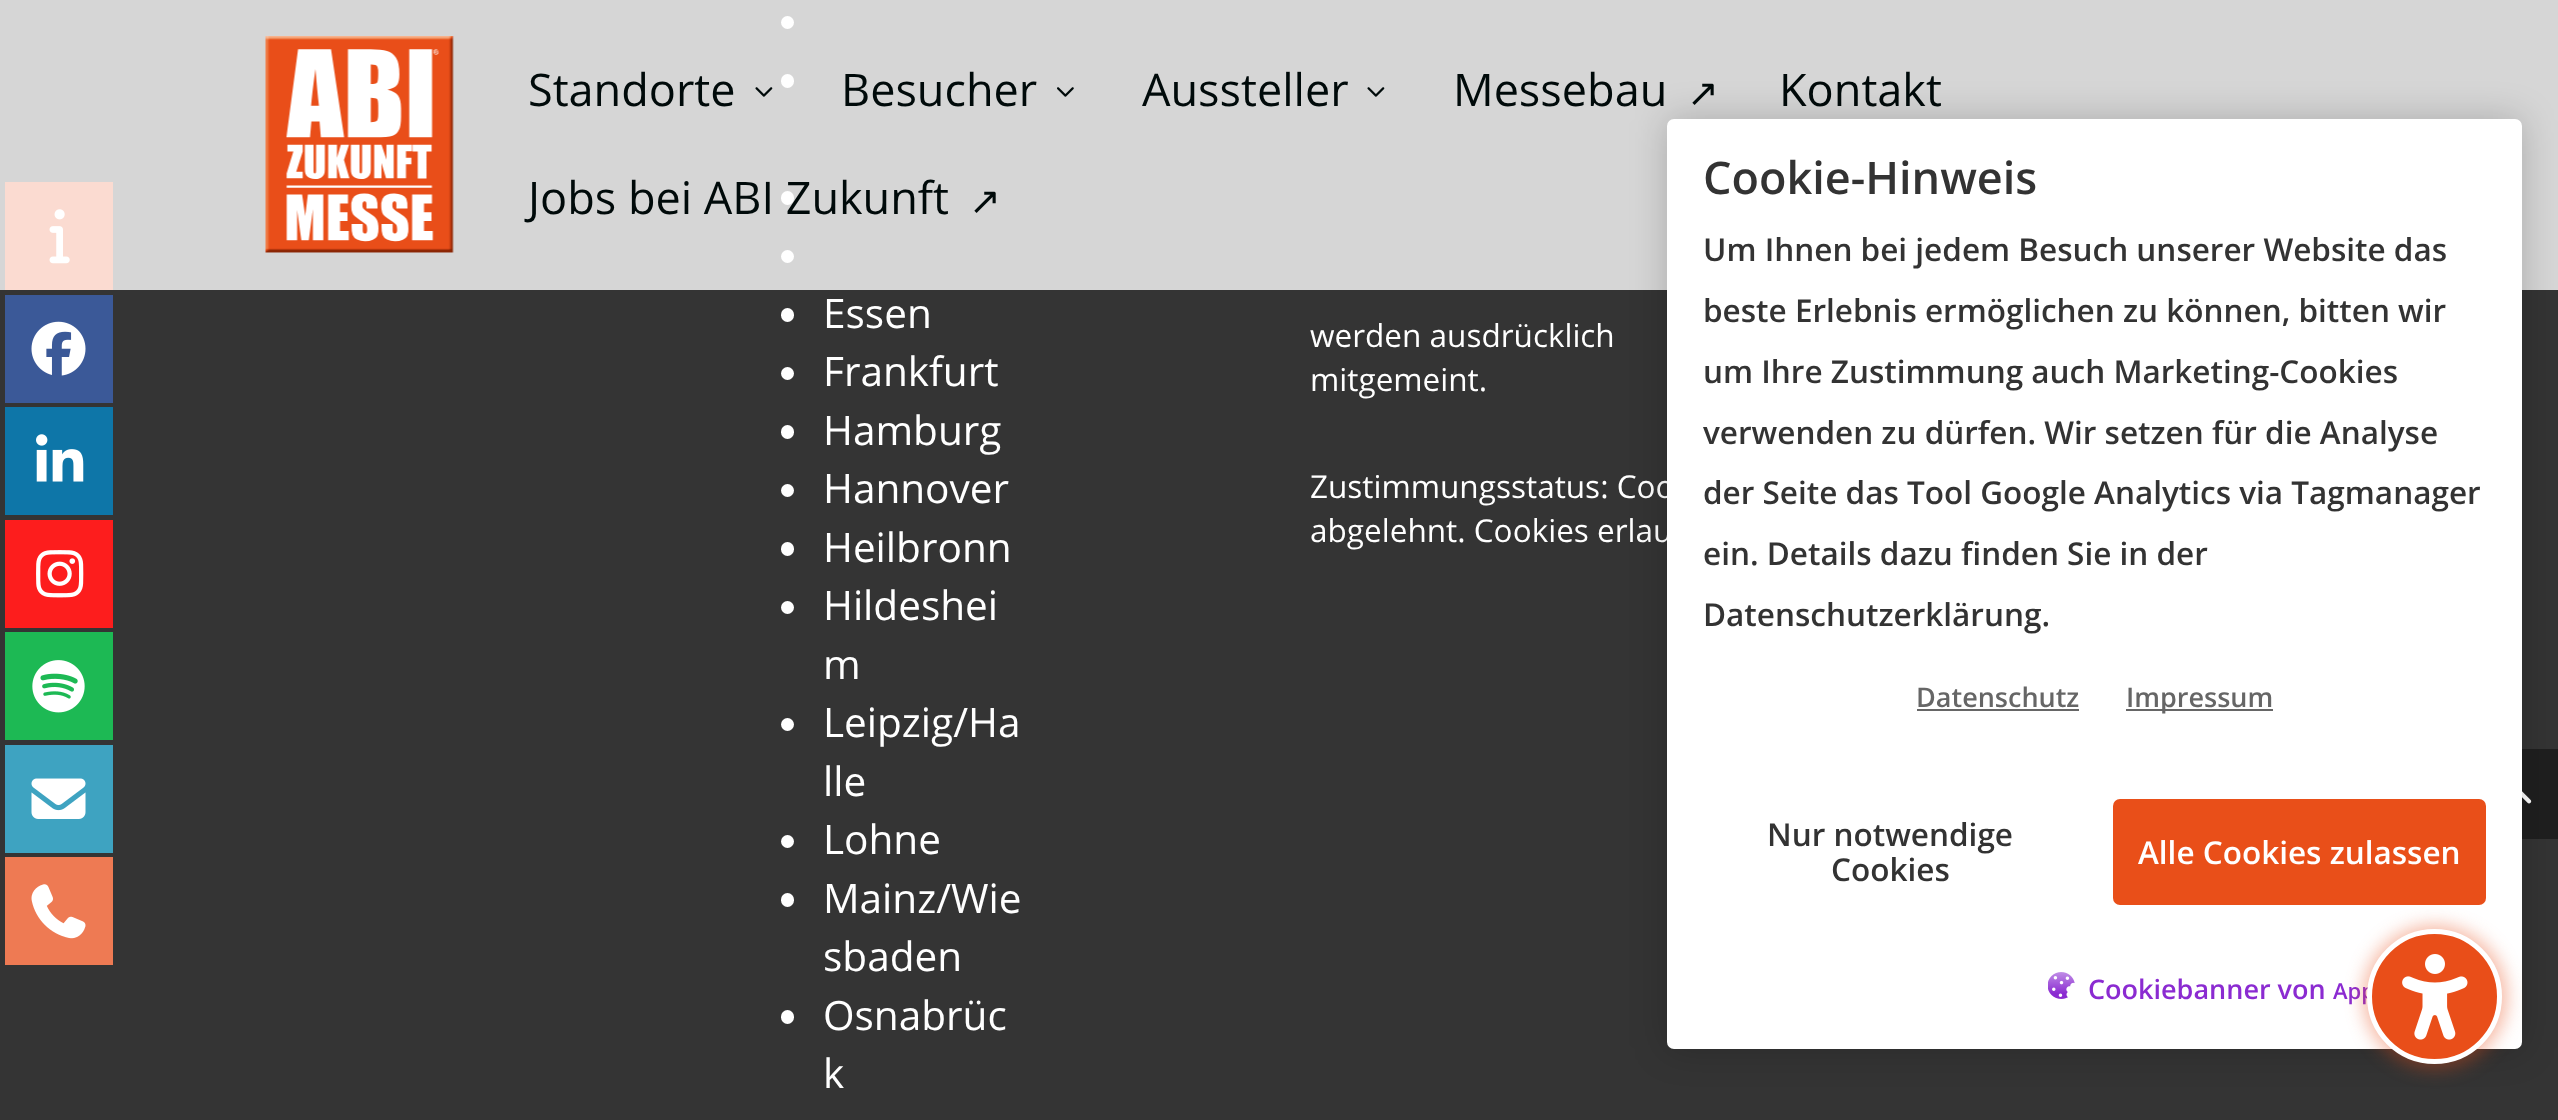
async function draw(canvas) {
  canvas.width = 2558;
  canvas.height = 1120;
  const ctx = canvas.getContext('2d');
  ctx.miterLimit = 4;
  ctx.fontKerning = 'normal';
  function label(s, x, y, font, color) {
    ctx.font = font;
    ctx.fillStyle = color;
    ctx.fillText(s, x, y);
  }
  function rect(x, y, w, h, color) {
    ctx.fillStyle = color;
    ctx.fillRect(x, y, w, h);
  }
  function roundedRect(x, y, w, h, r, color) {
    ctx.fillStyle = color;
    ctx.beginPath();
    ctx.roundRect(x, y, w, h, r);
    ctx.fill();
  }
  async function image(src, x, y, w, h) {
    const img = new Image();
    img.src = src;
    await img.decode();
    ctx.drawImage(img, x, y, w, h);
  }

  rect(0, 0, 2558, 1120, '#343434');
  rect(5, 182, 108, 108, '#e94e19');
  await image('assets/img1.png', 49, 209, 21, 55);
  rect(5, 295, 108, 108, '#3b5998');
  await image('assets/img2.png', 31, 321, 55, 55);
  rect(5, 407, 108, 108, '#0e76a8');
  await image('assets/img3.png', 36, 434, 48, 48);
  rect(5, 520, 108, 108, '#fd1d1d');
  await image('assets/img4.png', 36, 550, 48, 48);
  rect(5, 632, 108, 108, '#1db954');
  await image('assets/img5.png', 32, 660, 53, 53);
  rect(5, 745, 108, 108, '#3ea3c1');
  await image('assets/img6.png', 31, 778, 55, 41);
  rect(5, 857, 108, 108, '#ee7a53');
  await image('assets/img7.png', 31, 884, 55, 55);
  ctx.fillStyle = '#fff';
  ctx.beginPath();
  ctx.arc(787.5, 22.5, 6.5, 0, 2 * Math.PI);
  ctx.fill();
  roundedRect(781, 74, 13, 14, 6.5, '#fff');
  roundedRect(781, 191, 13, 14, 6.5, '#fff');
  ctx.beginPath();
  ctx.arc(787.5, 256.5, 6.5, 0, 2 * Math.PI);
  ctx.fill();
  rect(0, 0, 2558, 290, '#ffffffcc');
  await image('assets/img8.png', 265, 36, 189, 217);
  label('Standorte', 528, 106, '45px Open Sans', '#000a0a');
  await image('assets/img9.png', 755, 87, 18, 10);
  label('Besucher', 841, 106, '45px Open Sans', '#000a0a');
  await image('assets/img10.png', 1057, 87, 17, 10);
  label('Aussteller', 1142, 106, '45px Open Sans', '#000a0a');
  await image('assets/img9.png', 1367, 87, 18, 10);
  label('Messebau', 1453, 106, '45px Open Sans', '#000a0a');
  label('↗', 1687, 106, '38px DejaVu Sans', '#000a0a');
  label('Kontakt', 1779, 106, '45px Open Sans', '#000a0a');
  label('Jobs bei ABI Zukunft', 528, 214, '45px Open Sans', '#000a0a');
  label('↗', 969, 214, '38px DejaVu Sans', '#000a0a');
  roundedRect(781, 308, 13, 14, 6.5, '#fff');
  label('Essen', 823, 328, '40.5px Open Sans', '#fff');
  ctx.beginPath();
  ctx.arc(787.5, 373.5, 6.5, 0, 2 * Math.PI);
  ctx.fill();
  label('Frankfurt', 823, 386, '40.5px Open Sans', '#fff');
  roundedRect(781, 425, 13, 14, 6.5, '#fff');
  label('Hamburg', 823, 445, '40.5px Open Sans', '#fff');
  ctx.beginPath();
  ctx.arc(787.5, 490.5, 6.5, 0, 2 * Math.PI);
  ctx.fill();
  label('Hannover', 823, 503, '40.5px Open Sans', '#fff');
  roundedRect(781, 542, 13, 14, 6.5, '#fff');
  label('Heilbronn', 823, 562, '40.5px Open Sans', '#fff');
  ctx.beginPath();
  ctx.arc(787.5, 607.5, 6.5, 0, 2 * Math.PI);
  ctx.fill();
  label('Hildeshei', 823, 620, '40.5px Open Sans', '#fff');
  label('m', 823, 679, '40.5px Open Sans', '#fff');
  ctx.beginPath();
  ctx.arc(787.5, 724.5, 6.5, 0, 2 * Math.PI);
  ctx.fill();
  label('Leipzig/Ha', 823, 737, '40.5px Open Sans', '#fff');
  label('lle', 823, 796, '40.5px Open Sans', '#fff');
  ctx.beginPath();
  ctx.arc(787.5, 841.5, 6.5, 0, 2 * Math.PI);
  ctx.fill();
  label('Lohne', 823, 854, '40.5px Open Sans', '#fff');
  roundedRect(781, 893, 13, 14, 6.5, '#fff');
  label('Mainz/Wie', 823, 913, '40.5px Open Sans', '#fff');
  label('sbaden', 823, 971, '40.5px Open Sans', '#fff');
  roundedRect(781, 1010, 13, 14, 6.5, '#fff');
  label('Osnabrüc', 823, 1030, '40.5px Open Sans', '#fff');
  label('k', 823, 1088, '40.5px Open Sans', '#fff');
  label('werden ausdrücklich', 1310, 347, '31.5px Open Sans', '#fff');
  label('mitgemeint.', 1310, 391, '31.5px Open Sans', '#fff');
  label('Zustimmungsstatus: Coo', 1310, 498, '31.5px Open Sans', '#fff');
  label('abgelehnt. Cookies erlau', 1310, 542, '31.5px Open Sans', '#fff');
  rect(2522, 749, 36, 90, '#1f1f1f');
  await image('assets/img12.png', 2522, 791, 10, 13);
  ctx.fillStyle = '#00000033';
  ctx.filter = 'blur(18px)';
  ctx.beginPath();
  ctx.roundRect(1667, 119, 855, 930, 7);
  ctx.fill();
  ctx.filter = 'none';
  roundedRect(1667, 119, 855, 930, 7, '#fff');
  label('Cookie-Hinweis', 1703, 194, '600 45px Open Sans', '#333');
  label('Um Ihnen bei jedem Besuch unserer Website das', 1703, 261, '600 31.5px Open Sans', '#333');
  label('beste Erlebnis ermöglichen zu können, bitten wir', 1703, 322, '600 31.5px Open Sans', '#333');
  label('um Ihre Zustimmung auch Marketing-Cookies', 1703, 383, '600 31.5px Open Sans', '#333');
  label('verwenden zu dürfen. Wir setzen für die Analyse', 1703, 444, '600 31.5px Open Sans', '#333');
  label('der Seite das Tool Google Analytics via Tagmanager', 1703, 504, '600 31.5px Open Sans', '#333');
  label('ein. Details dazu finden Sie in der', 1703, 565, '600 31.5px Open Sans', '#333');
  label('Datenschutzerklärung.', 1703, 626, '600 31.5px Open Sans', '#333');
  label('Datenschutz', 1916, 707, '600 27px Open Sans', '#666');
  rect(1917, 709, 162, 2, '#666');
  rect(2126, 709, 147, 2, '#666');
  label('Impressum', 2126, 707, '600 27px Open Sans', '#666');
  label('Nur notwendige', 1767, 846, '600 31.5px Open Sans', '#333');
  label('Cookies', 1831, 881, '600 31.5px Open Sans', '#333');
  roundedRect(2113, 799, 373, 106, 7, '#e94f19');
  label('Alle Cookies zulassen', 2138, 864, '600 31.5px Open Sans', '#fff');
  await image('assets/img11.png', 2048, 972, 27, 27);
  label('Cookiebanner von', 2088, 999, '600 27px Open Sans', '#8b2bd1');
  label('App', 2333, 999, '600 22px Open Sans', '#8b2bd1');
  ctx.fillStyle = '#e94e1966';
  ctx.filter = 'blur(9px)';
  ctx.beginPath();
  ctx.roundRect(2363, 925, 144, 144, 72);
  ctx.fill();
  ctx.filter = 'none';
  ctx.fillStyle = '#e94e19';
  ctx.beginPath();
  ctx.arc(2434.5, 996.5, 65, 0, 2 * Math.PI);
  ctx.fill();
  ctx.strokeStyle = '#fff';
  ctx.lineWidth = 5;
  ctx.stroke();
  await image('assets/img13.png', 2402, 954, 66, 86);
}

draw(document.querySelector('canvas'));
